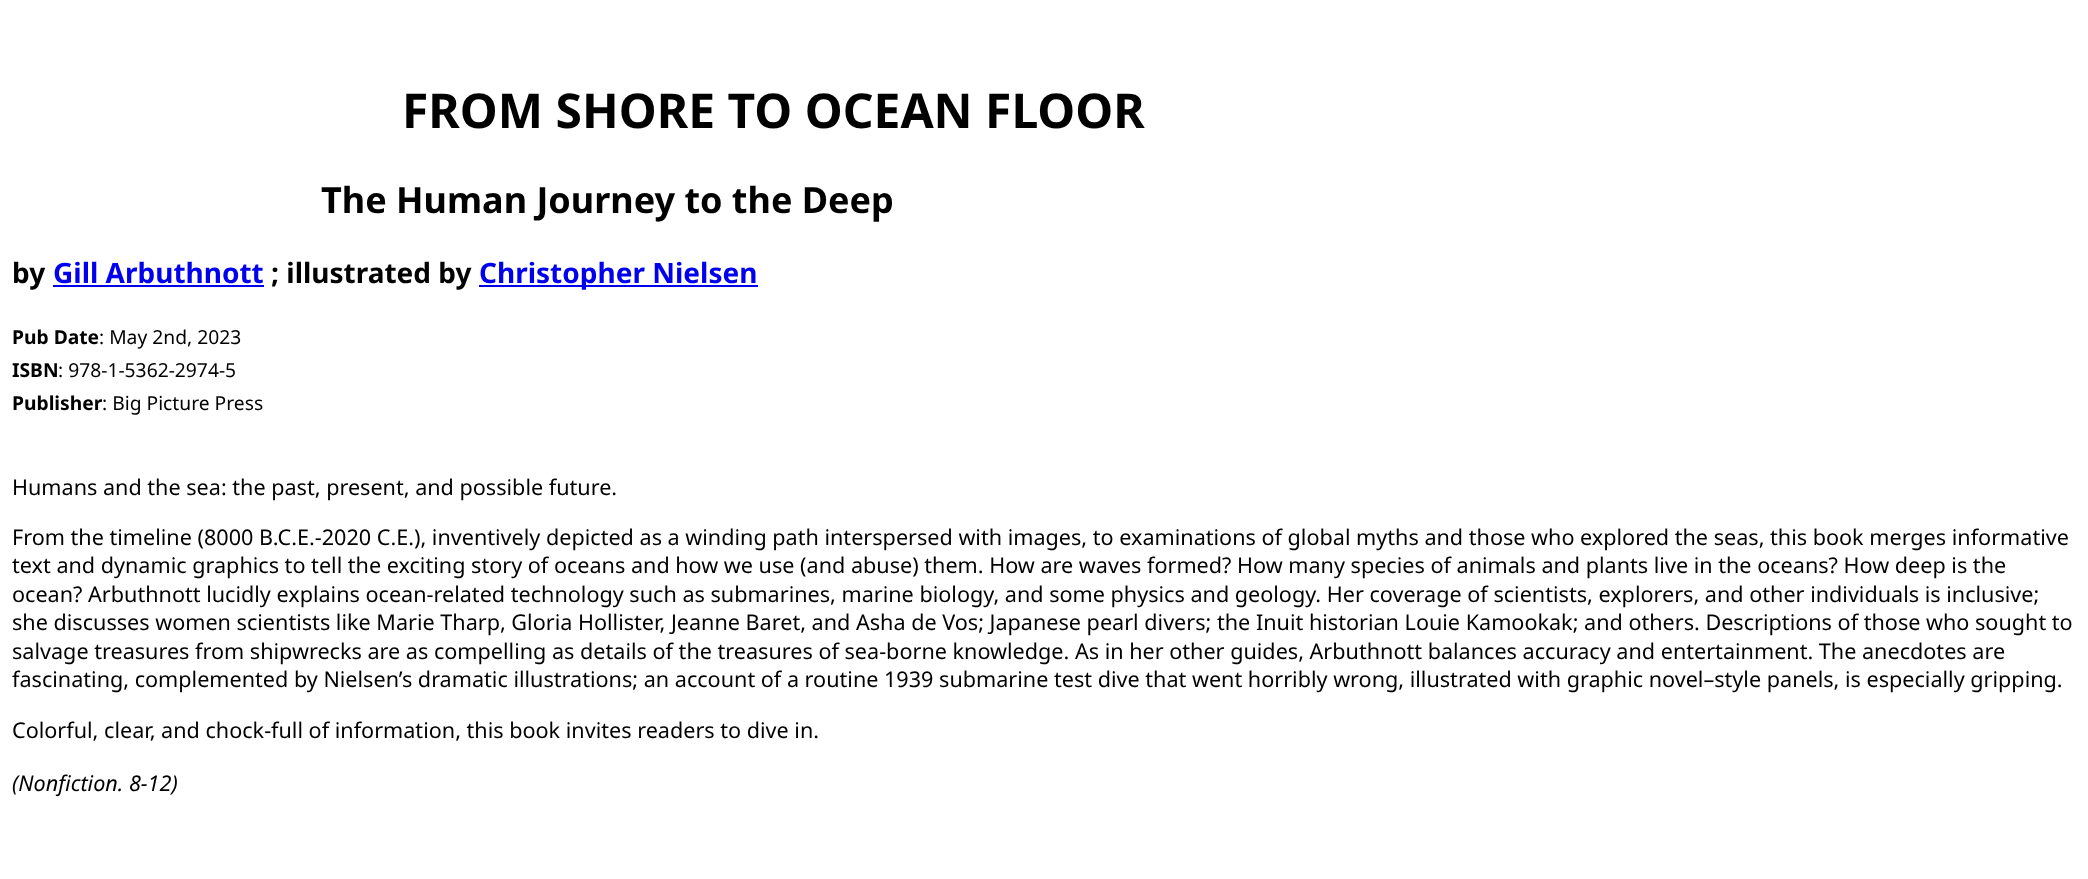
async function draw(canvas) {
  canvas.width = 2088;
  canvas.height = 879;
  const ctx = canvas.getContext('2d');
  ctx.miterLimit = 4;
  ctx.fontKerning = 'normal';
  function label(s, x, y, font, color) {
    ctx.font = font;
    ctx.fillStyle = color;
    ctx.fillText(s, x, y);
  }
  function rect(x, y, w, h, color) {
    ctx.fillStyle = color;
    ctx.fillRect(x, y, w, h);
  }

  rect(0, 0, 2088, 879, '#fff');
  label('FROM SHORE TO OCEAN FLOOR', 402, 128, 'bold 48px Noto Sans', '#000');
  label('The Human Journey to the Deep', 321, 213, 'bold 36px Noto Sans', '#000');
  label('by', 12, 283, 'bold 28px Noto Sans', '#000');
  label('Gill Arbuthnott', 53, 283, 'bold 28px Noto Sans', '#00e');
  rect(53, 285, 211, 2, '#00e');
  label('; illustrated by', 271, 283, 'bold 28px Noto Sans', '#000');
  rect(479, 285, 279, 2, '#00e');
  label('Christopher Nielsen', 479, 283, 'bold 28px Noto Sans', '#00e');
  label('Pub Date', 12, 344, 'bold 19.25px Noto Sans', '#000');
  label(': May 2nd, 2023', 99, 344, '19.25px Noto Sans', '#000');
  label('ISBN', 12, 377, 'bold 19.25px Noto Sans', '#000');
  label(': 978-1-5362-2974-5', 58, 377, '19.25px Noto Sans', '#000');
  label('Publisher', 12, 410, 'bold 19.25px Noto Sans', '#000');
  label(': Big Picture Press', 102, 410, '19.25px Noto Sans', '#000');
  label('Humans and the sea: the past, present, and possible future.', 12, 495, '21.6px Noto Sans', '#000');
  label('From the timeline (8000 B.C.E.-2020 C.E.), inventively depicted as a winding path interspersed with images, to examinations of global myths and those who explored the seas, this book merges informative', 12, 545, '21.6px Noto Sans', '#000');
  label('text and dynamic graphics to tell the exciting story of oceans and how we use (and abuse) them. How are waves formed? How many species of animals and plants live in the oceans? How deep is the', 12, 573, '21.6px Noto Sans', '#000');
  label('ocean? Arbuthnott lucidly explains ocean-related technology such as submarines, marine biology, and some physics and geology. Her coverage of scientists, explorers, and other individuals is inclusive;', 12, 602, '21.6px Noto Sans', '#000');
  label('she discusses women scientists like Marie Tharp, Gloria Hollister, Jeanne Baret, and Asha de Vos; Japanese pearl divers; the Inuit historian Louie Kamookak; and others. Descriptions of those who sought to', 12, 630, '21.6px Noto Sans', '#000');
  label('salvage treasures from shipwrecks are as compelling as details of the treasures of sea-borne knowledge. As in her other guides, Arbuthnott balances accuracy and entertainment. The anecdotes are', 12, 659, '21.6px Noto Sans', '#000');
  label('fascinating, complemented by Nielsen’s dramatic illustrations; an account of a routine 1939 submarine test dive that went horribly wrong, illustrated with graphic novel–style panels, is especially gripping.', 12, 687, '21.6px Noto Sans', '#000');
  label('Colorful, clear, and chock-full of information, this book invites readers to dive in.', 12, 738, '21.6px Noto Sans', '#000');
  label('(Nonfiction. 8-12)', 12, 791, 'italic 21.6px Noto Sans', '#000');
}

draw(document.querySelector('canvas'));
